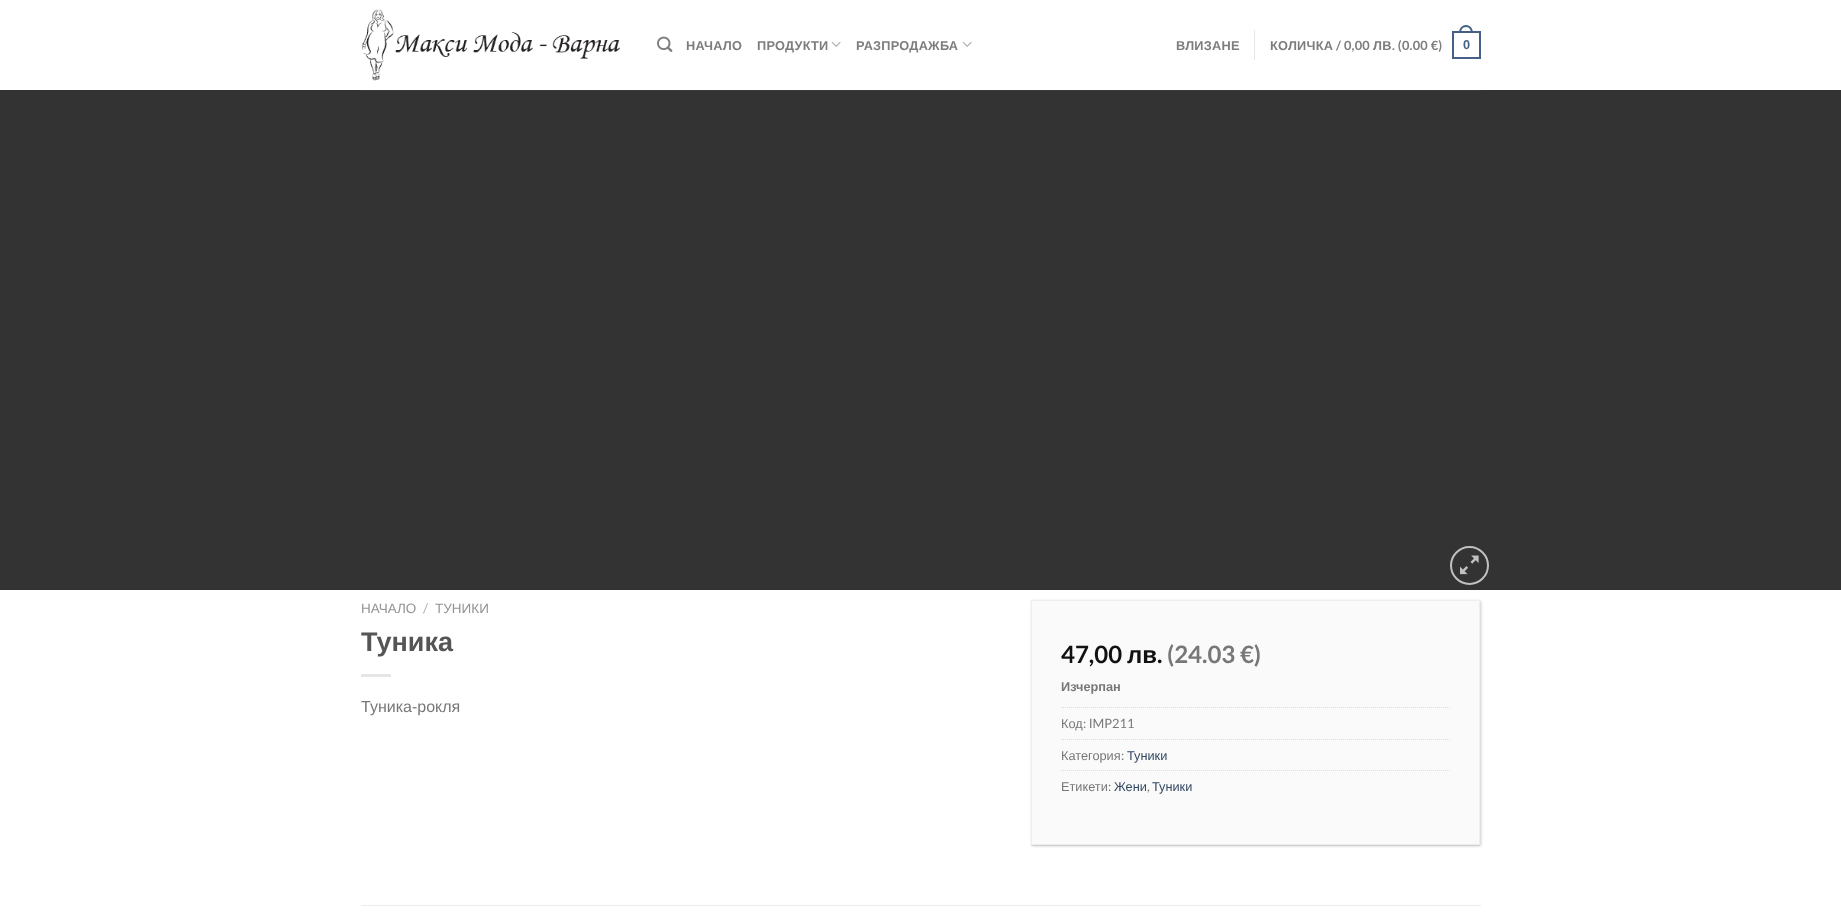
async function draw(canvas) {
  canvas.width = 1841;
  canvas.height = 914;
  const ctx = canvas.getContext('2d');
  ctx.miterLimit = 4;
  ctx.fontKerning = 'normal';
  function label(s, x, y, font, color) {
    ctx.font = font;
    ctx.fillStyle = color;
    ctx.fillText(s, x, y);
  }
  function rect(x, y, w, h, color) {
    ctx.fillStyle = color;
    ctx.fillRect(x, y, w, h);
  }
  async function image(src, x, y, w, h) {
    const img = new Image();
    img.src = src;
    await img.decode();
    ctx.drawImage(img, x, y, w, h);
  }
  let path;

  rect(0, 0, 1841, 914, '#fff');
  await image('assets/img1.png', 361, 9, 259, 72);
  await image('assets/img2.png', 657, 36, 16, 16);
  ctx.letterSpacing = '0.25px';
  label('НАЧАЛО', 686, 50, 'bold 12.75px Liberation Sans', '#7d7d7d');
  label('ПРОДУКТИ', 757, 50, 'bold 12.75px Liberation Sans', '#7d7d7d');
  await image('assets/img3.png', 831, 41, 10, 6);
  label('РАЗПРОДАЖБА', 856, 50, 'bold 12.75px Liberation Sans', '#7d7d7d');
  await image('assets/img3.png', 962, 41, 10, 6);
  label('ВЛИЗАНЕ', 1176, 50, 'bold 12.75px Liberation Sans', '#7d7d7d');
  rect(1254, 30, 1, 30, '#e6e6e6');
  label('КОЛИЧКА', 1270, 50, 'bold 12.75px Liberation Sans', '#7d7d7d');
  label('/ 0,00', 1336, 50, 'bold 12.75px Lato', '#7d7d7d');
  label('ЛВ', 1373, 50, 'bold 12.75px Liberation Sans', '#7d7d7d');
  label('. (0.00 €)', 1392, 50, 'bold 12.75px Lato', '#7d7d7d');
  ctx.strokeStyle = '#446084';
  ctx.lineWidth = 2;
  ctx.strokeRect(1453, 32, 27, 26);
  ctx.fillStyle = '#446084';
  path = new Path2D('M1466 25C1470.5 25 1473 29 1473 33H1459C1459 29 1461.5 25 1466 25ZM1466 27C1469.5 27 1471 30 1471 33H1461C1461 30 1462.5 27 1466 27Z');
  ctx.fill(path, 'evenodd');
  label('0', 1463, 49, 'bold 12.75px Liberation Sans', '#446084');
  rect(0, 90, 1841, 500, '#333');
  rect(361, 90, 1120, 1, '#3a3a3a');
  ctx.beginPath();
  ctx.arc(1469.5, 565.5, 18.5, 0, 2 * Math.PI);
  ctx.strokeStyle = '#c0c0c0';
  ctx.stroke();
  await image('assets/img4.png', 1460, 555, 19, 20);
  ctx.letterSpacing = '0px';
  label('НАЧАЛО', 361, 613, '13.5px Liberation Sans', '#949494');
  label('/', 423, 613, '13.5px Lato', '#b2b2b2');
  label('ТУНИКИ', 435, 613, '13.5px Liberation Sans', '#949494');
  label('Туника', 361, 651, 'bold 27px Liberation Sans', '#555');
  rect(361, 674, 30, 3, '#e6e6e6');
  label('Туника-рокля', 361, 712, '16px Liberation Sans', '#777');
  rect(1031, 845, 449, 1, '#ededed');
  ctx.fillStyle = '#00000033';
  ctx.filter = 'blur(1.5px)';
  ctx.beginPath();
  ctx.rect(1032, 601, 449, 245);
  ctx.fill();
  ctx.filter = 'none';
  ctx.fillStyle = '#fafafa';
  ctx.beginPath();
  ctx.rect(1031.5, 600.5, 448, 244);
  ctx.fill();
  ctx.strokeStyle = '#eee';
  ctx.lineWidth = 1;
  ctx.stroke();
  label('47,00', 1061, 663, 'bold 24px Lato', '#111');
  label('лв', 1127, 663, 'bold 24px Liberation Sans', '#111');
  label('.', 1157, 663, 'bold 24px Lato', '#111');
  label('(24.03 €)', 1167, 663, 'bold 24px Lato', '#777');
  label('Изчерпан', 1061, 691, 'bold 12.75px Liberation Sans', '#777');
  path = new Path2D('M1061 707.5H1450');
  ctx.strokeStyle = '#ddd';
  ctx.setLineDash([1, 1]);
  ctx.stroke(path);
  label('Код', 1061, 728, '12.75px Liberation Sans', '#777');
  label(': IMP211', 1083, 728, '12.75px Lato', '#777');
  path = new Path2D('M1061 739.5H1450');
  ctx.stroke(path);
  label('Категория', 1061, 760, '12.75px Liberation Sans', '#777');
  label(':', 1121, 760, '12.75px Lato', '#777');
  label('Туники', 1127, 760, '12.75px Liberation Sans', '#334862');
  path = new Path2D('M1061 770.5H1450');
  ctx.stroke(path);
  label('Етикети', 1061, 791, '12.75px Liberation Sans', '#777');
  label(':', 1108, 791, '12.75px Lato', '#777');
  label('Жени', 1114, 791, '12.75px Liberation Sans', '#334862');
  label(',', 1147, 791, '12.75px Lato', '#777');
  label('Туники', 1152, 791, '12.75px Liberation Sans', '#334862');
  rect(361, 905, 1120, 1, '#ececec');
}

draw(document.querySelector('canvas'));
